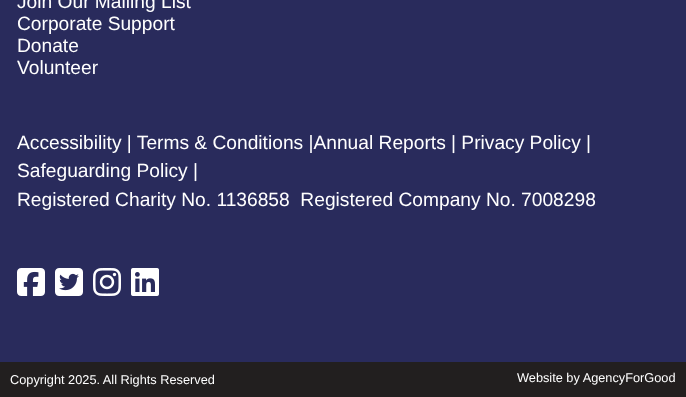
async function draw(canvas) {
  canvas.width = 686;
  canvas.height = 397;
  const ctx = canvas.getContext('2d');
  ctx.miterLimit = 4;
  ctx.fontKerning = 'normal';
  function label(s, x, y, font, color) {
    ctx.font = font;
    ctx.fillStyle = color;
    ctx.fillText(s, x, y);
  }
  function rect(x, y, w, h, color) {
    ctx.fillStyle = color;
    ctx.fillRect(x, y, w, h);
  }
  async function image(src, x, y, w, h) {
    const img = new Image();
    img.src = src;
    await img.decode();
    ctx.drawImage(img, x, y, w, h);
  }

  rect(0, 0, 686, 397, '#292b5c');
  label('Join Our Mailing List', 17, 8, '19.2px Liberation Sans', '#fff');
  label('Corporate Support', 17, 30, '19.2px Liberation Sans', '#fff');
  label('Donate', 17, 52, '19.2px Liberation Sans', '#fff');
  label('Volunteer', 17, 74, '19.2px Liberation Sans', '#fff');
  label('Accessibility | Terms & Conditions |Annual Reports | Privacy Policy |', 17, 149, '19.2px Liberation Sans', '#fff');
  label('Safeguarding Policy |', 17, 177, '19.2px Liberation Sans', '#fff');
  label('Registered Charity No. 1136858  Registered Company No. 7008298', 17, 206, '19.2px Liberation Sans', '#fff');
  await image('assets/img1.png', 17, 268, 28, 28);
  await image('assets/img2.png', 55, 268, 28, 28);
  await image('assets/img3.png', 93, 268, 28, 28);
  await image('assets/img4.png', 131, 268, 28, 28);
  rect(0, 362, 686, 35, '#221f1f');
  label('Copyright 2025. All Rights Reserved', 10, 384, '12.75px Liberation Sans', '#fff');
  label('Website by AgencyForGood', 517, 382, '12.75px Liberation Sans', '#fff');
}

draw(document.querySelector('canvas'));
